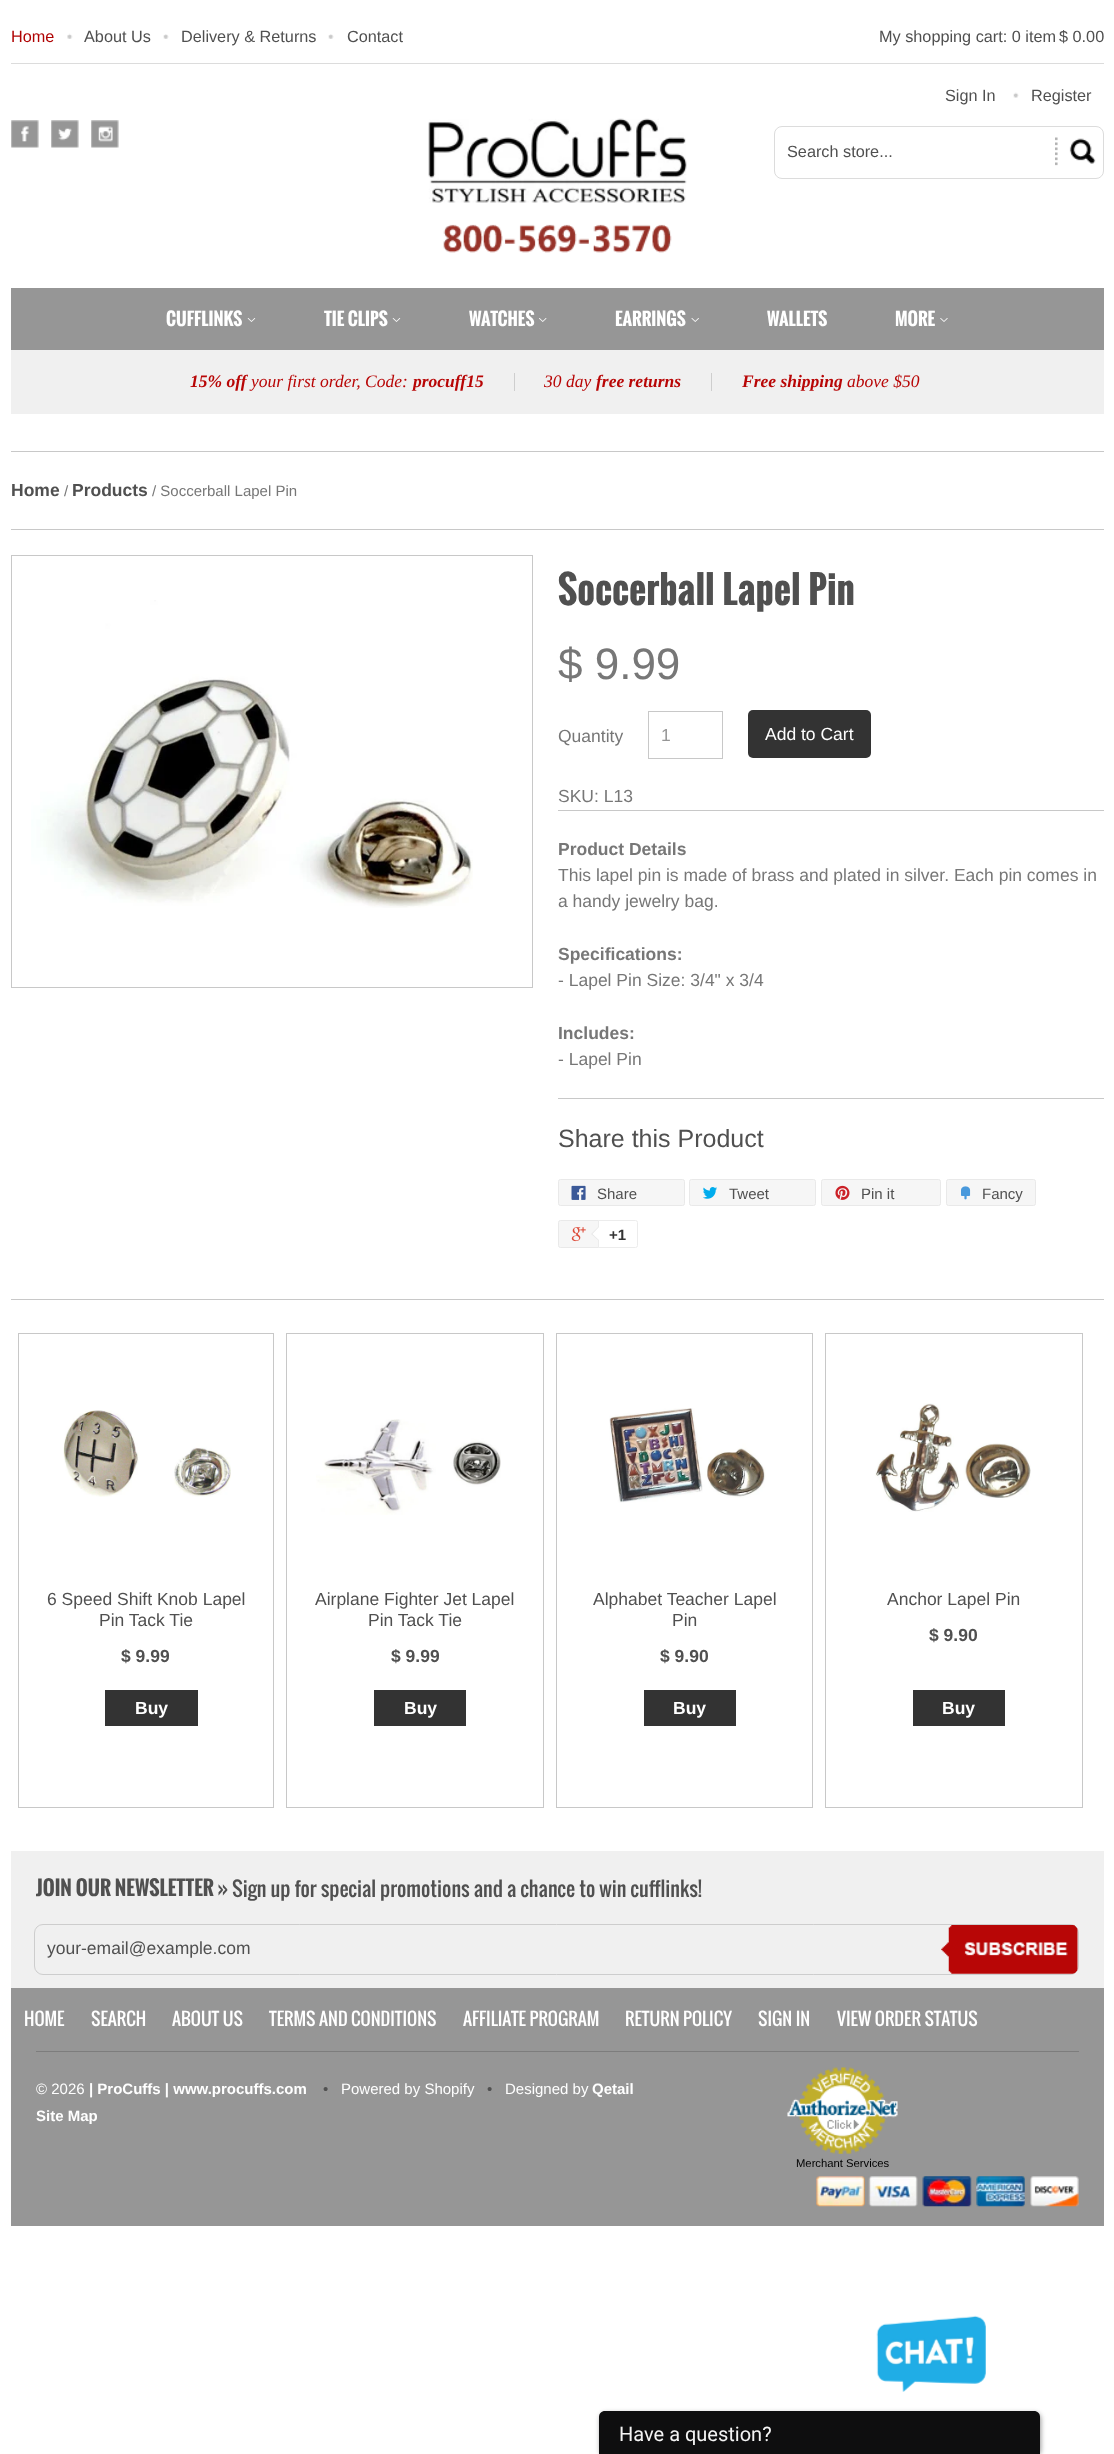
async function draw(canvas) {
  canvas.width = 1114;
  canvas.height = 2454;
  const ctx = canvas.getContext('2d');
  ctx.miterLimit = 4;
  ctx.fontKerning = 'normal';
  function label(s, x, y, font, color) {
    ctx.font = font;
    ctx.fillStyle = color;
    ctx.fillText(s, x, y);
  }
  function rect(x, y, w, h, color) {
    ctx.fillStyle = color;
    ctx.fillRect(x, y, w, h);
  }
  function roundedRect(x, y, w, h, r, color) {
    ctx.fillStyle = color;
    ctx.beginPath();
    ctx.roundRect(x, y, w, h, r);
    ctx.fill();
  }
  async function image(src, x, y, w, h) {
    const img = new Image();
    img.src = src;
    await img.decode();
    ctx.drawImage(img, x, y, w, h);
  }
  let path;

  rect(0, 0, 1114, 2454, '#fff');
  rect(11, 63, 1093, 1, '#dcdcdc');
  label('Home', 11, 42, '16.25px Liberation Sans', '#b00303');
  await image('assets/img1.png', 67, 33, 6, 6);
  label('About Us', 84, 42, '16.25px Liberation Sans', '#505050');
  await image('assets/img2.png', 163, 34, 6, 5);
  label('Delivery & Returns', 181, 42, '16.25px Liberation Sans', '#505050');
  await image('assets/img2.png', 328, 34, 6, 5);
  label('Contact', 347, 42, '16.25px Liberation Sans', '#505050');
  label('My shopping cart: 0 item', 879, 42, '16.25px Liberation Sans', '#505050');
  label('$ 0.00', 1059, 42, '16.25px Liberation Sans', '#505050');
  await image('assets/img3.png', 11, 120, 28, 28);
  await image('assets/img4.png', 51, 120, 28, 28);
  await image('assets/img5.png', 91, 120, 28, 28);
  await image('assets/img6.png', 428, 118, 259, 135);
  label('Sign In', 945, 101, '16.25px Liberation Sans', '#505050');
  await image('assets/img7.png', 1013, 92, 6, 6);
  label('Register', 1031, 101, '16.25px Liberation Sans', '#505050');
  ctx.beginPath();
  ctx.roundRect(774.5, 126.5, 329, 52, 7.5);
  ctx.strokeStyle = '#dcdcdc';
  ctx.stroke();
  label('Search store...', 787, 157, '16.25px Liberation Sans', '#505050');
  await image('assets/img8.png', 1055, 137, 41, 29);
  rect(11, 288, 1093, 62, '#969696');
  label('CUFFLINKS', 166, 326, 'bold 17.5px Oswald', '#fff');
  await image('assets/img9.png', 247, 318, 9, 4);
  label('TIE CLIPS', 324, 326, 'bold 17.5px Oswald', '#fff');
  await image('assets/img9.png', 392, 318, 9, 4);
  label('WATCHES', 469, 326, 'bold 17.5px Oswald', '#fff');
  await image('assets/img10.png', 539, 318, 8, 4);
  label('EARRINGS', 615, 326, 'bold 17.5px Oswald', '#fff');
  await image('assets/img11.png', 691, 318, 8, 4);
  label('WALLETS', 767, 326, 'bold 17.5px Oswald', '#fff');
  label('MORE', 895, 326, 'bold 17.5px Oswald', '#fff');
  await image('assets/img12.png', 940, 318, 8, 4);
  rect(11, 350, 1093, 64, '#f0f0f0');
  label('15% off', 190, 387, 'italic bold 17.5px Liberation Serif', '#b80606');
  label('your first order, Code:', 251, 387, 'italic 17.5px Liberation Serif', '#b80606');
  label('procuff15', 413, 387, 'italic bold 17.5px Liberation Serif', '#b80606');
  rect(514, 373, 1, 18, '#cecece');
  label('30 day', 544, 387, 'italic 17.5px Liberation Serif', '#b80606');
  label('free returns', 596, 387, 'italic bold 17.5px Liberation Serif', '#b80606');
  rect(711, 373, 1, 18, '#cecece');
  label('Free shipping', 742, 387, 'italic bold 17.5px Liberation Serif', '#b80606');
  label('above $50', 847, 387, 'italic 17.5px Liberation Serif', '#b80606');
  rect(11, 451, 1093, 1, '#c8c8c8');
  rect(11, 529, 1093, 1, '#c8c8c8');
  label('Home', 11, 496, 'bold 17.5px Liberation Sans', '#505050');
  label('/', 64, 496, '15px Liberation Sans', '#777');
  label('Products', 72, 496, 'bold 17.5px Liberation Sans', '#505050');
  label('/ Soccerball Lapel Pin', 152, 496, '15px Liberation Sans', '#777');
  ctx.strokeStyle = '#c8c8c8';
  ctx.strokeRect(11.5, 555.5, 521, 432);
  await image('assets/img13.png', 31, 600, 442, 308);
  label('Soccerball Lapel Pin', 558, 605, 'bold 37.5px Oswald', '#505050');
  label('$ 9.99', 558, 679, '44px Liberation Sans', '#777');
  label('Quantity', 558, 742, '17.5px Liberation Sans', '#777');
  ctx.strokeRect(648.5, 711.5, 74, 47);
  label('1', 661, 741, '17.5px Liberation Sans', '#969696');
  roundedRect(748, 710, 123, 48, 5, '#333');
  label('Add to Cart', 765, 740, '17.5px Liberation Sans', '#fff');
  label('SKU: L13', 558, 802, '17.5px Liberation Sans', '#777');
  rect(558, 810, 546, 1, '#c8c8c8');
  rect(558, 1098, 546, 1, '#c8c8c8');
  label('Product Details', 558, 855, 'bold 17.5px Liberation Sans', '#777');
  label('This lapel pin is made of brass and plated in silver. Each pin comes in', 558, 881, '17.5px Liberation Sans', '#777');
  label('a handy jewelry bag.', 558, 907, '17.5px Liberation Sans', '#777');
  label('Specifications:', 558, 960, 'bold 17.5px Liberation Sans', '#777');
  label('- Lapel Pin Size: 3/4" x 3/4', 558, 986, '17.5px Liberation Sans', '#777');
  label('Includes:', 558, 1039, 'bold 17.5px Liberation Sans', '#777');
  label('- Lapel Pin', 558, 1065, '17.5px Liberation Sans', '#777');
  label('Share this Product', 558, 1147, '25px Liberation Sans', '#505050');
  ctx.fillStyle = '#f6f6f6';
  ctx.beginPath();
  ctx.roundRect(558.5, 1179.5, 126, 26, 2);
  ctx.fill();
  ctx.strokeStyle = '#e9e9e9';
  ctx.stroke();
  await image('assets/img14.png', 571, 1185, 15, 15);
  label('Share', 597, 1199, '15px Liberation Sans', '#505050');
  ctx.fillStyle = '#f6f6f6';
  ctx.beginPath();
  ctx.roundRect(689.5, 1179.5, 126, 26, 2);
  ctx.fill();
  ctx.stroke();
  await image('assets/img15.png', 703, 1187, 14, 12);
  label('Tweet', 729, 1199, '15px Liberation Sans', '#505050');
  ctx.fillStyle = '#f6f6f6';
  ctx.beginPath();
  ctx.roundRect(821.5, 1179.5, 119, 26, 2);
  ctx.fill();
  ctx.stroke();
  await image('assets/img16.png', 835, 1185, 15, 15);
  label('Pin it', 861, 1199, '15px Liberation Sans', '#505050');
  ctx.fillStyle = '#f6f6f6';
  ctx.beginPath();
  ctx.roundRect(946.5, 1179.5, 89, 26, 2);
  ctx.fill();
  ctx.stroke();
  await image('assets/img17.png', 961, 1186, 10, 14);
  label('Fancy', 982, 1199, '15px Liberation Sans', '#505050');
  ctx.fillStyle = '#f6f6f6';
  ctx.beginPath();
  ctx.roundRect(558.5, 1220.5, 77, 27, 2);
  ctx.fill();
  ctx.stroke();
  await image('assets/img18.png', 571, 1227, 15, 15);
  ctx.fillStyle = '#fff';
  ctx.beginPath();
  ctx.roundRect(598.5, 1220.5, 39, 27, [0, 2, 2, 0]);
  ctx.fill();
  ctx.strokeStyle = '#ececec';
  ctx.stroke();
  ctx.fillStyle = '#e9e9e9';
  path = new Path2D('M599 1226V1241L591 1234Z');
  ctx.fill(path);
  ctx.fillStyle = '#fff';
  path = new Path2D('M600 1226V1241L592.5 1234Z');
  ctx.fill(path);
  label('+1', 609, 1240, 'bold 15px Liberation Sans', '#333');
  rect(11, 1299, 1093, 1, '#c8c8c8');
  ctx.strokeStyle = '#c8c8c8';
  ctx.strokeRect(18.5, 1333.5, 255, 474);
  await image('assets/img19.png', 63, 1410, 168, 87);
  label('6 Speed Shift Knob Lapel', 47, 1605, '17.5px Liberation Sans', '#505050');
  label('Pin Tack Tie', 99, 1626, '17.5px Liberation Sans', '#505050');
  label('$ 9.99', 121, 1662, 'bold 17.5px Liberation Sans', '#505050');
  rect(105, 1690, 93, 36, '#333');
  label('Buy', 135, 1714, 'bold 17.5px Liberation Sans', '#fff');
  ctx.strokeRect(286.5, 1333.5, 257, 474);
  await image('assets/img20.png', 316, 1419, 185, 96);
  label('Airplane Fighter Jet Lapel', 315, 1605, '17.5px Liberation Sans', '#505050');
  label('Pin Tack Tie', 368, 1626, '17.5px Liberation Sans', '#505050');
  label('$ 9.99', 391, 1662, 'bold 17.5px Liberation Sans', '#505050');
  rect(374, 1690, 92, 36, '#333');
  label('Buy', 404, 1714, 'bold 17.5px Liberation Sans', '#fff');
  ctx.strokeRect(556.5, 1333.5, 256, 474);
  await image('assets/img21.png', 609, 1408, 157, 95);
  label('Alphabet Teacher Lapel', 593, 1605, '17.5px Liberation Sans', '#505050');
  label('Pin', 672, 1626, '17.5px Liberation Sans', '#505050');
  label('$ 9.90', 660, 1662, 'bold 17.5px Liberation Sans', '#505050');
  rect(644, 1690, 92, 36, '#333');
  label('Buy', 673, 1714, 'bold 17.5px Liberation Sans', '#fff');
  ctx.strokeRect(825.5, 1333.5, 257, 474);
  await image('assets/img22.png', 875, 1403, 156, 109);
  label('Anchor Lapel Pin', 887, 1605, '17.5px Liberation Sans', '#505050');
  label('$ 9.90', 929, 1641, 'bold 17.5px Liberation Sans', '#505050');
  rect(913, 1690, 92, 36, '#333');
  label('Buy', 942, 1714, 'bold 17.5px Liberation Sans', '#fff');
  rect(11, 1988, 1093, 238, '#969696');
  rect(11, 1851, 1093, 137, '#f0f0f0');
  label('JOIN OUR NEWSLETTER »', 36, 1896, 'bold 20px Oswald', '#505050');
  label('Sign up for special promotions and a chance to win cufflinks!', 232, 1897, '20px Oswald', '#505050');
  ctx.beginPath();
  ctx.roundRect(34.5, 1924.5, 1044, 50, 8.5);
  ctx.strokeStyle = '#cdcdcd';
  ctx.stroke();
  label('your-email@example.com', 47, 1954, '17.5px Liberation Sans', '#505050');
  await image('assets/img23.png', 941, 1925, 137, 49);
  label('HOME', 24, 2026, '17.5px Oswald', '#fff');
  label('SEARCH', 91, 2026, '17.5px Oswald', '#fff');
  label('ABOUT US', 172, 2026, '17.5px Oswald', '#fff');
  label('TERMS AND CONDITIONS', 269, 2026, '17.5px Oswald', '#fff');
  label('AFFILIATE PROGRAM', 463, 2026, '17.5px Oswald', '#fff');
  label('RETURN POLICY', 625, 2026, '17.5px Oswald', '#fff');
  label('SIGN IN', 758, 2026, '17.5px Oswald', '#fff');
  label('VIEW ORDER STATUS', 837, 2026, '17.5px Oswald', '#fff');
  rect(36, 2051, 1043, 1, '#7d7d7d');
  label('© 2026', 36, 2094, '15px Liberation Sans', '#fff');
  label('| ProCuffs | www.procuffs.com', 89, 2094, 'bold 15px Liberation Sans', '#fff');
  label('•', 323, 2094, '15px Liberation Sans', '#505050');
  label('Powered by Shopify', 341, 2094, '15px Liberation Sans', '#fff');
  label('•', 487, 2094, '15px Liberation Sans', '#505050');
  label('Designed by', 505, 2094, '15px Liberation Sans', '#fff');
  label('Qetail', 592, 2094, 'bold 15px Liberation Sans', '#fff');
  label('Site Map', 36, 2121, 'bold 15px Liberation Sans', '#fff');
  await image('assets/img24.png', 787, 2067, 111, 87);
  label('Merchant Services', 796, 2167, '11.25px Liberation Sans', '#000');
  await image('assets/img25.png', 816, 2176, 49, 31);
  await image('assets/img26.png', 868, 2176, 50, 31);
  await image('assets/img27.png', 922, 2176, 50, 31);
  await image('assets/img28.png', 976, 2176, 49, 31);
  await image('assets/img29.png', 1030, 2176, 49, 31);
  ctx.fillStyle = '#00000066';
  ctx.filter = 'blur(2.5px)';
  ctx.beginPath();
  ctx.roundRect(600, 2413, 441, 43, 6);
  ctx.fill();
  ctx.filter = 'none';
  await image('assets/img30.png', 876, 2315, 110, 77);
  ctx.fillStyle = '#0e0e0f';
  path = new Path2D('M605 2411H1034C1037.5 2411 1040 2413.5 1040 2417V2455H599V2417C599 2413.5 601.5 2411 605 2411Z');
  ctx.fill(path);
  label('Have a question?', 619, 2441, '20px Roboto', '#f4f4f4');
}

draw(document.querySelector('canvas'));
